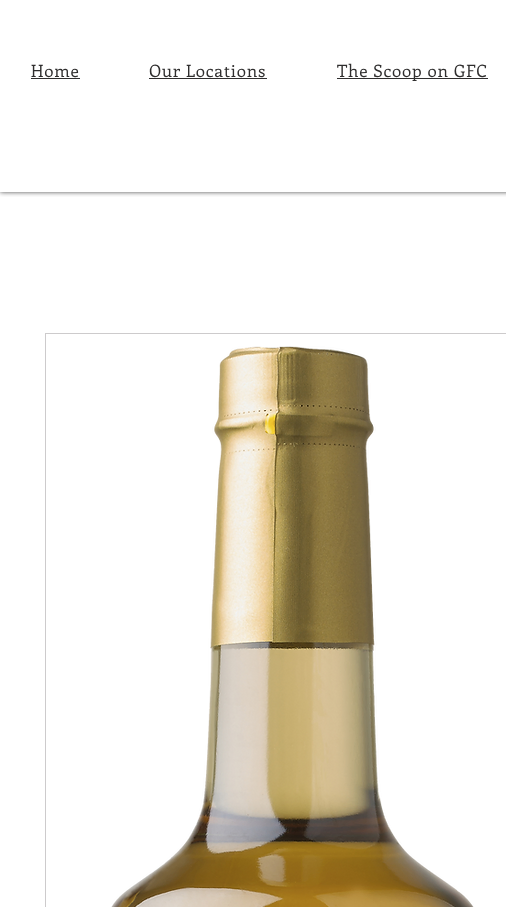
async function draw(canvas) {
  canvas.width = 506;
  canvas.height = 907;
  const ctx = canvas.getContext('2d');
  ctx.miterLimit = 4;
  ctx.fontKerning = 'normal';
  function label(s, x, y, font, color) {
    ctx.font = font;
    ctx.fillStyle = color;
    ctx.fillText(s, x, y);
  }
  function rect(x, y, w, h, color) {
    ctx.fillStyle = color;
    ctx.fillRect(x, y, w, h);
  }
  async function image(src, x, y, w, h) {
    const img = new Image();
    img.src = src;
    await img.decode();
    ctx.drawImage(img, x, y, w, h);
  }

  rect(0, 0, 506, 907, '#fff');
  ctx.save();
  ctx.beginPath();
  ctx.rect(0, 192, 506, 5);
  ctx.clip();
  ctx.fillStyle = '#000000b3';
  ctx.filter = 'blur(2.5px)';
  ctx.beginPath();
  ctx.rect(0, 0, 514, 192);
  ctx.fill();
  ctx.filter = 'none';
  ctx.restore();
  ctx.letterSpacing = '0.8px';
  label('Home', 31, 77, '17px Enriqueta', '#2f2e2e');
  rect(31, 78, 49, 1, '#2f2e2e');
  label('Our Locations', 149, 77, '17px Enriqueta', '#2f2e2e');
  rect(149, 78, 118, 1, '#2f2e2e');
  rect(337, 78, 151, 1, '#2f2e2e');
  label('The Scoop on GFC', 337, 77, '17px Enriqueta', '#2f2e2e');
  ctx.strokeStyle = '#cdcbcc';
  ctx.strokeRect(45.5, 333.5, 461, 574);
  await image('assets/img1.png', 111, 346, 363, 561);
}

draw(document.querySelector('canvas'));
